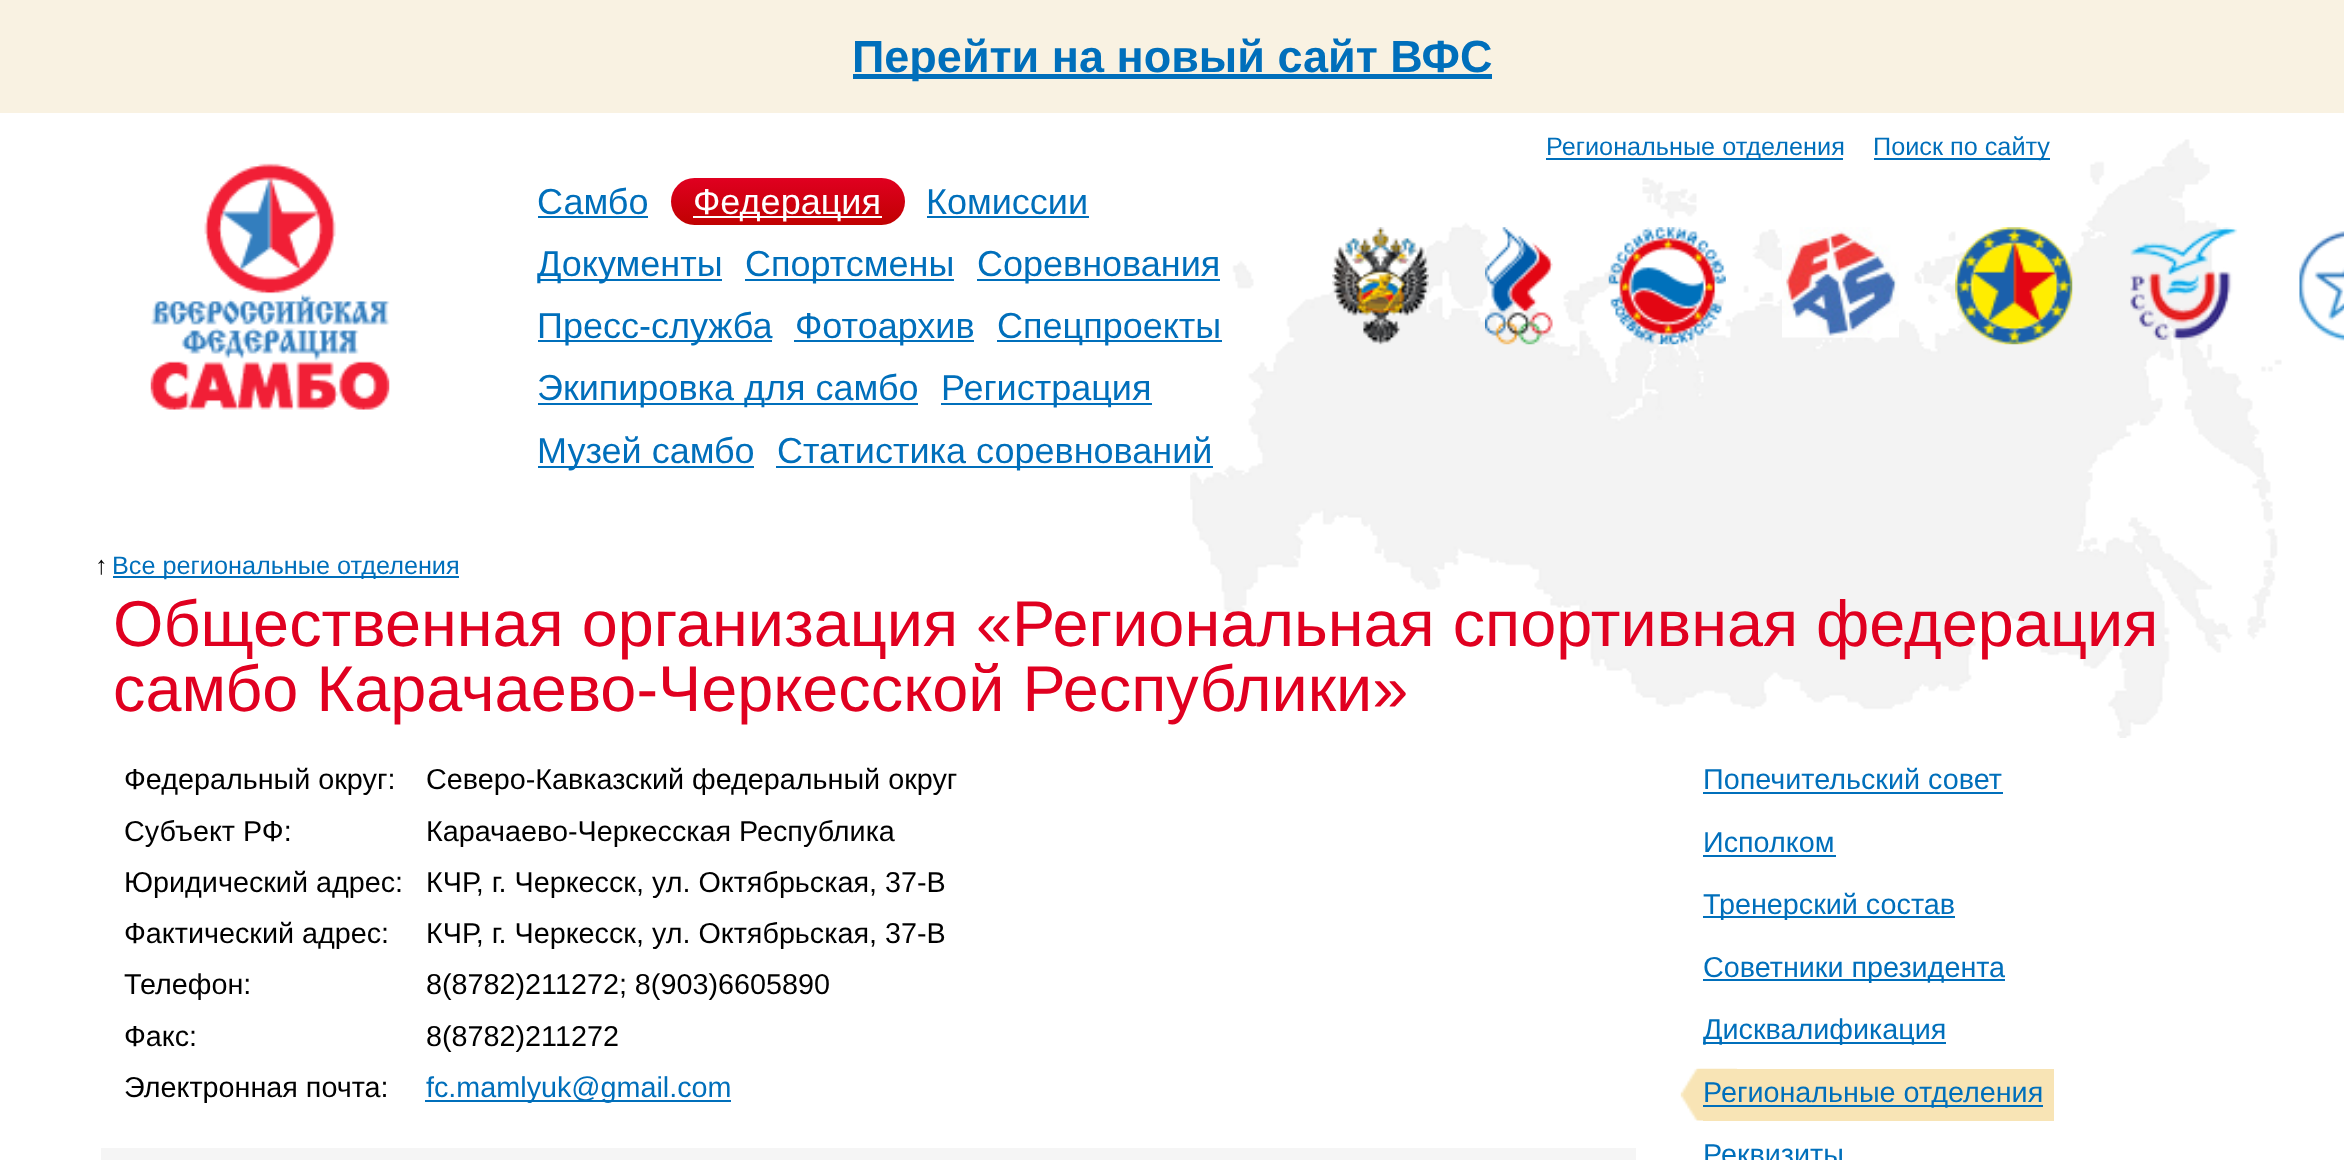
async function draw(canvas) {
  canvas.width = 2344;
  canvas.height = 1160;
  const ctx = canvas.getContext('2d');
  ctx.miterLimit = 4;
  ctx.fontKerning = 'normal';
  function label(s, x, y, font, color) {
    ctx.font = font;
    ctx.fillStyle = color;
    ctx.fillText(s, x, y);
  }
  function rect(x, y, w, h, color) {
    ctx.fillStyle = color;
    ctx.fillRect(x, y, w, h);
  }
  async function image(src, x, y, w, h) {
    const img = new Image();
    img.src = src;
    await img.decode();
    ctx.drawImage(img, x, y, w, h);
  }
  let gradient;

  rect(0, 0, 2344, 1160, '#fff');
  rect(0, 0, 2344, 113, '#f9f2e2');
  rect(853, 74, 639, 5, '#006fbb');
  label('Перейти на новый сайт ВФС', 852, 72, 'bold 45px Liberation Sans', '#006fbb');
  await image('assets/img1.png', 1190, 139, 1092, 599);
  rect(1546, 158, 297, 2, '#006fbb');
  label('Региональные отделения', 1546, 155, '25.25px Liberation Sans', '#006fbb');
  rect(1874, 158, 176, 2, '#006fbb');
  label('Поиск по сайту', 1873, 155, '25.25px Liberation Sans', '#006fbb');
  await image('assets/img2.png', 150, 163, 240, 247);
  label('Самбо', 537, 214, '36px Liberation Sans', '#006fbb');
  rect(538, 216, 110, 2, '#006fbb');
  gradient = ctx.createLinearGradient(671, 178, 671, 225);
  gradient.addColorStop(0, '#e00020');
  gradient.addColorStop(1, '#c00101');
  ctx.fillStyle = gradient;
  ctx.beginPath();
  ctx.roundRect(671, 178, 234, 47, 23.5);
  ctx.fill();
  rect(693, 216, 189, 2, '#fff');
  label('Федерация', 693, 214, '36px Liberation Sans', '#fff');
  label('Комиссии', 926, 214, '36px Liberation Sans', '#006fbb');
  rect(927, 216, 162, 2, '#006fbb');
  rect(538, 279, 184, 2, '#006fbb');
  label('Документы', 537, 276, '36px Liberation Sans', '#006fbb');
  rect(745, 279, 209, 2, '#006fbb');
  label('Спортсмены', 745, 276, '36px Liberation Sans', '#006fbb');
  rect(977, 279, 243, 2, '#006fbb');
  label('Соревнования', 977, 276, '36px Liberation Sans', '#006fbb');
  rect(538, 340, 234, 2, '#006fbb');
  label('Пресс-служба', 537, 338, '36px Liberation Sans', '#006fbb');
  rect(794, 340, 180, 2, '#006fbb');
  label('Фотоархив', 795, 338, '36px Liberation Sans', '#006fbb');
  rect(997, 340, 225, 2, '#006fbb');
  label('Спецпроекты', 997, 338, '36px Liberation Sans', '#006fbb');
  rect(538, 403, 380, 2, '#006fbb');
  label('Экипировка для самбо', 537, 400, '36px Liberation Sans', '#006fbb');
  rect(941, 403, 211, 2, '#006fbb');
  label('Регистрация', 941, 400, '36px Liberation Sans', '#006fbb');
  rect(538, 466, 216, 2, '#006fbb');
  label('Музей самбо', 537, 463, '36px Liberation Sans', '#006fbb');
  rect(776, 466, 437, 2, '#006fbb');
  label('Статистика соревнований', 777, 463, '36px Liberation Sans', '#006fbb');
  await image('assets/img3.png', 1332, 227, 97, 118);
  await image('assets/img4.png', 1485, 227, 68, 118);
  await image('assets/img5.png', 1608, 227, 118, 118);
  await image('assets/img6.png', 1782, 227, 117, 111);
  await image('assets/img7.png', 1955, 227, 118, 118);
  await image('assets/img8.png', 2130, 227, 108, 113);
  await image('assets/img9.png', 2299, 231, 45, 110);
  label('↑', 95, 574, '25.25px Liberation Sans', '#000');
  rect(113, 576, 346, 2, '#006fbb');
  label('Все региональные отделения', 112, 574, '25.25px Liberation Sans', '#006fbb');
  label('Общественная организация «Региональная спортивная федерация', 113, 646, '64.8px Liberation Sans', '#e00020');
  label('самбо Карачаево-Черкесской Республики»', 113, 711, '64.8px Liberation Sans', '#e00020');
  label('Федеральный округ:', 124, 789, '28.75px Liberation Sans', '#000');
  label('Северо-Кавказский федеральный округ', 426, 789, '28.75px Liberation Sans', '#000');
  label('Субъект РФ:', 124, 841, '28.75px Liberation Sans', '#000');
  label('Карачаево-Черкесская Республика', 426, 841, '28.75px Liberation Sans', '#000');
  label('Юридический адрес:', 124, 892, '28.75px Liberation Sans', '#000');
  label('КЧР, г. Черкесск, ул. Октябрьская, 37-В', 426, 892, '28.75px Liberation Sans', '#000');
  label('Фактический адрес:', 124, 943, '28.75px Liberation Sans', '#000');
  label('КЧР, г. Черкесск, ул. Октябрьская, 37-В', 426, 943, '28.75px Liberation Sans', '#000');
  label('Телефон:', 124, 994, '28.75px Liberation Sans', '#000');
  label('8(8782)211272; 8(903)6605890', 426, 994, '28.75px Liberation Sans', '#000');
  label('Факс:', 124, 1046, '28.75px Liberation Sans', '#000');
  label('8(8782)211272', 426, 1046, '28.75px Liberation Sans', '#000');
  label('Электронная почта:', 124, 1097, '28.75px Liberation Sans', '#000');
  rect(425, 1100, 306, 2, '#006fbb');
  label('fc.mamlyuk@gmail.com', 426, 1097, '28.75px Liberation Sans', '#006fbb');
  rect(101, 1148, 1535, 12, '#f5f5f5');
  label('Попечительский совет', 1703, 789, '28.75px Liberation Sans', '#006fbb');
  rect(1703, 792, 300, 2, '#006fbb');
  label('Исполком', 1703, 852, '28.75px Liberation Sans', '#006fbb');
  rect(1703, 855, 133, 2, '#006fbb');
  rect(1703, 916, 252, 2, '#006fbb');
  label('Тренерский состав', 1703, 914, '28.75px Liberation Sans', '#006fbb');
  rect(1703, 979, 302, 2, '#006fbb');
  label('Советники президента', 1703, 977, '28.75px Liberation Sans', '#006fbb');
  rect(1703, 1042, 243, 2, '#006fbb');
  label('Дисквалификация', 1703, 1039, '28.75px Liberation Sans', '#006fbb');
  await image('assets/img10.png', 1680, 1068, 57, 53);
  rect(1703, 1069, 351, 52, '#f8e4b5');
  rect(1703, 1105, 340, 2, '#006fbb');
  label('Региональные отделения', 1703, 1102, '28.75px Liberation Sans', '#006fbb');
  label('Реквизиты', 1703, 1164, '28.75px Liberation Sans', '#006fbb');
}

draw(document.querySelector('canvas'));
